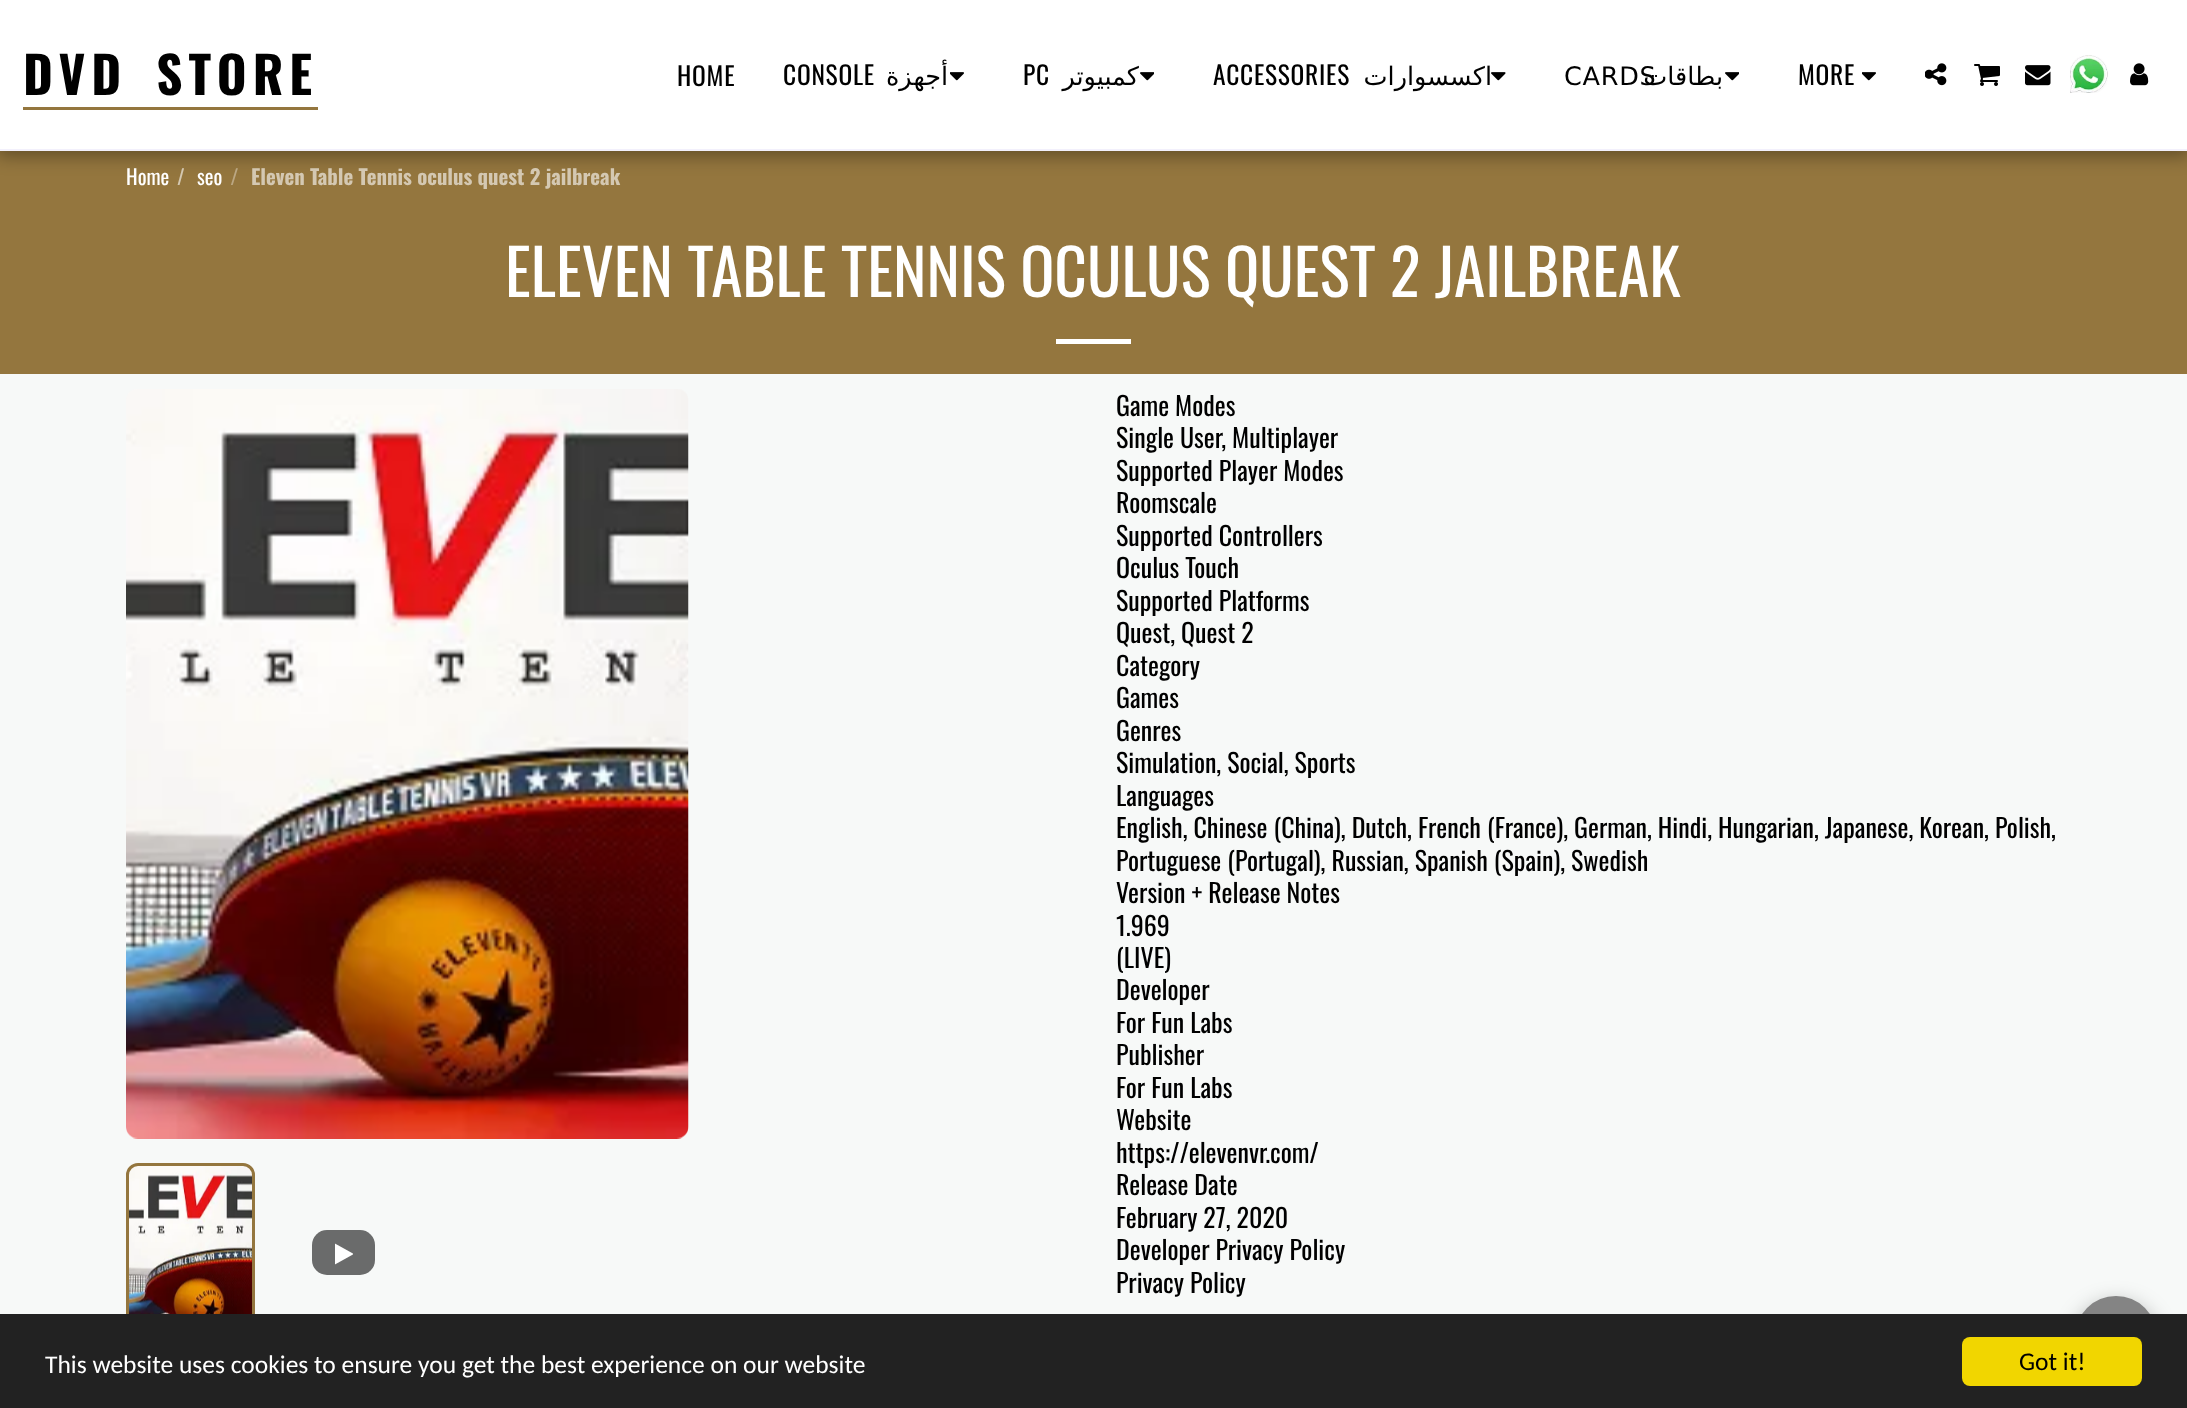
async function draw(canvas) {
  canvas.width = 2187;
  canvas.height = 1408;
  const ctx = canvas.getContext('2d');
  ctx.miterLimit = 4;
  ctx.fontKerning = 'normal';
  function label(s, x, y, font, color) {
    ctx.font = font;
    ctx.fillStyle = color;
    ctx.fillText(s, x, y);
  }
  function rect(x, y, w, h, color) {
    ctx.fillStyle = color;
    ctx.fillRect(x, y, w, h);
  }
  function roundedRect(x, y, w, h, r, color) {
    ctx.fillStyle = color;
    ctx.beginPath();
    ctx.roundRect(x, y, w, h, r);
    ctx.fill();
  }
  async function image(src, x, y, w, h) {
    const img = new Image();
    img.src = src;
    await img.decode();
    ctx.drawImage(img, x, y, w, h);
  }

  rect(0, 0, 2187, 1408, '#f7f9f8');
  rect(0, 151, 2187, 223, '#94763e');
  ctx.fillStyle = '#00000059';
  ctx.filter = 'blur(9px)';
  ctx.beginPath();
  ctx.rect(-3, 0, 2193, 156);
  ctx.fill();
  ctx.filter = 'none';
  rect(0, 0, 2187, 149, '#fff');
  rect(0, 149, 2187, 2, '#f2f0fc');
  rect(23, 107, 295, 3, '#94763e');
  ctx.letterSpacing = '6px';
  ctx.wordSpacing = '10px';
  label('DVD STORE', 23, 95, 'bold 51px Oswald', '#000');
  ctx.letterSpacing = '0.75px';
  ctx.wordSpacing = '0px';
  label('HOME', 677, 86, '25.5px Oswald', '#000');
  label('CONSOLE', 783, 85, '25.5px Oswald', '#000');
  ctx.direction = 'rtl';
  label('أجهزة', 948, 85, '25.5px DejaVu Sans', '#000');
  await image('assets/img1.png', 950, 72, 14, 9);
  ctx.direction = 'ltr';
  label('PC', 1023, 85, '25.5px Oswald', '#000');
  ctx.direction = 'rtl';
  label('كمبيوتر', 1139, 85, '25.5px DejaVu Sans', '#000');
  await image('assets/img2.png', 1140, 72, 14, 9);
  ctx.direction = 'ltr';
  label('ACCESSORIES', 1213, 85, '25.5px Oswald', '#000');
  ctx.direction = 'rtl';
  label('اكسسوارات', 1492, 85, '25.5px DejaVu Sans', '#000');
  await image('assets/img3.png', 1491, 72, 15, 9);
  ctx.direction = 'ltr';
  label('CARDS', 1564, 85, '25.5px DejaVu Sans', '#000');
  ctx.direction = 'rtl';
  label('بطاقات', 1723, 85, '25.5px DejaVu Sans', '#000');
  await image('assets/img2.png', 1725, 72, 14, 9);
  ctx.direction = 'ltr';
  label('MORE', 1798, 85, '25.5px Oswald', '#000');
  await image('assets/img1.png', 1862, 72, 14, 9);
  await image('assets/img4.png', 1925, 63, 22, 23);
  await image('assets/img5.png', 1974, 64, 26, 22);
  await image('assets/img6.png', 2025, 65, 26, 21);
  await image('assets/img7.png', 2070, 55, 38, 38);
  await image('assets/img8.png', 2130, 63, 19, 23);
  ctx.letterSpacing = '0px';
  label('Home', 126, 185, '20.75px Oswald', '#fff');
  label('/', 177, 185, '20.75px Oswald', '#d4c8b2');
  label('seo', 197, 185, '20.75px Oswald', '#fff');
  label('/', 230, 185, 'bold 20.75px Oswald', '#bba783');
  label('Eleven Table Tennis oculus quest 2 jailbreak', 251, 185, 'bold 20.75px Oswald', '#d4c8b2');
  label('ELEVEN TABLE TENNIS OCULUS QUEST 2 JAILBREAK', 505, 297, '63.4px Oswald', '#fff');
  rect(1056, 339, 75, 5, '#fff');
  await image('assets/img9.png', 126, 389, 563, 750);
  await image('assets/img10.png', 126, 1166, 129, 148);
  ctx.beginPath();
  ctx.roundRect(127.5, 1164.5, 126, 175, 10.5);
  ctx.strokeStyle = '#94763e';
  ctx.lineWidth = 3;
  ctx.stroke();
  roundedRect(312, 1230, 63, 45, 15, '#6a6b6b');
  await image('assets/img11.png', 335, 1243, 18, 22);
  label('Game Modes', 1116, 416, '26px Oswald', '#000');
  label('Single User, Multiplayer', 1116, 448, '26px Oswald', '#000');
  label('Supported Player Modes', 1116, 481, '26px Oswald', '#000');
  label('Roomscale', 1116, 513, '26px Oswald', '#000');
  label('Supported Controllers', 1116, 546, '26px Oswald', '#000');
  label('Oculus Touch', 1116, 578, '26px Oswald', '#000');
  label('Supported Platforms', 1116, 611, '26px Oswald', '#000');
  label('Quest, Quest 2', 1116, 643, '26px Oswald', '#000');
  label('Category', 1116, 676, '26px Oswald', '#000');
  label('Games', 1116, 708, '26px Oswald', '#000');
  label('Genres', 1116, 741, '26px Oswald', '#000');
  label('Simulation, Social, Sports', 1116, 773, '26px Oswald', '#000');
  label('Languages', 1116, 806, '26px Oswald', '#000');
  label('English, Chinese (China), Dutch, French (France), German, Hindi, Hungarian, Japanese, Korean, Polish,', 1116, 838, '26px Oswald', '#000');
  label('Portuguese (Portugal), Russian, Spanish (Spain), Swedish', 1116, 871, '26px Oswald', '#000');
  label('Version + Release Notes', 1116, 903, '26px Oswald', '#000');
  label('1.969', 1116, 936, '26px Oswald', '#000');
  label('(LIVE)', 1116, 968, '26px Oswald', '#000');
  label('Developer', 1116, 1000, '26px Oswald', '#000');
  label('For Fun Labs', 1116, 1033, '26px Oswald', '#000');
  label('Publisher', 1116, 1065, '26px Oswald', '#000');
  label('For Fun Labs', 1116, 1098, '26px Oswald', '#000');
  label('Website', 1116, 1130, '26px Oswald', '#000');
  label('https://elevenvr.com/', 1116, 1163, '26px Oswald', '#000');
  label('Release Date', 1116, 1195, '26px Oswald', '#000');
  label('February 27, 2020', 1116, 1228, '26px Oswald', '#000');
  label('Developer Privacy Policy', 1116, 1260, '26px Oswald', '#000');
  label('Privacy Policy', 1116, 1293, '26px Oswald', '#000');
  ctx.fillStyle = '#00000059';
  ctx.filter = 'blur(11px)';
  ctx.beginPath();
  ctx.roundRect(2075, 1304, 82, 82, 41);
  ctx.fill();
  ctx.filter = 'none';
  roundedRect(2075, 1296, 82, 83, 41, '#848484');
  rect(0, 1314, 2187, 94, '#222');
  label('This website uses cookies to ensure you get the best experience on our website', 45, 1373, '25.5px Carlito', '#fff');
  roundedRect(1962, 1337, 180, 49, 8, '#f1d600');
  label('Got it!', 2019, 1370, '25.5px Carlito', '#000');
}

draw(document.querySelector('canvas'));
